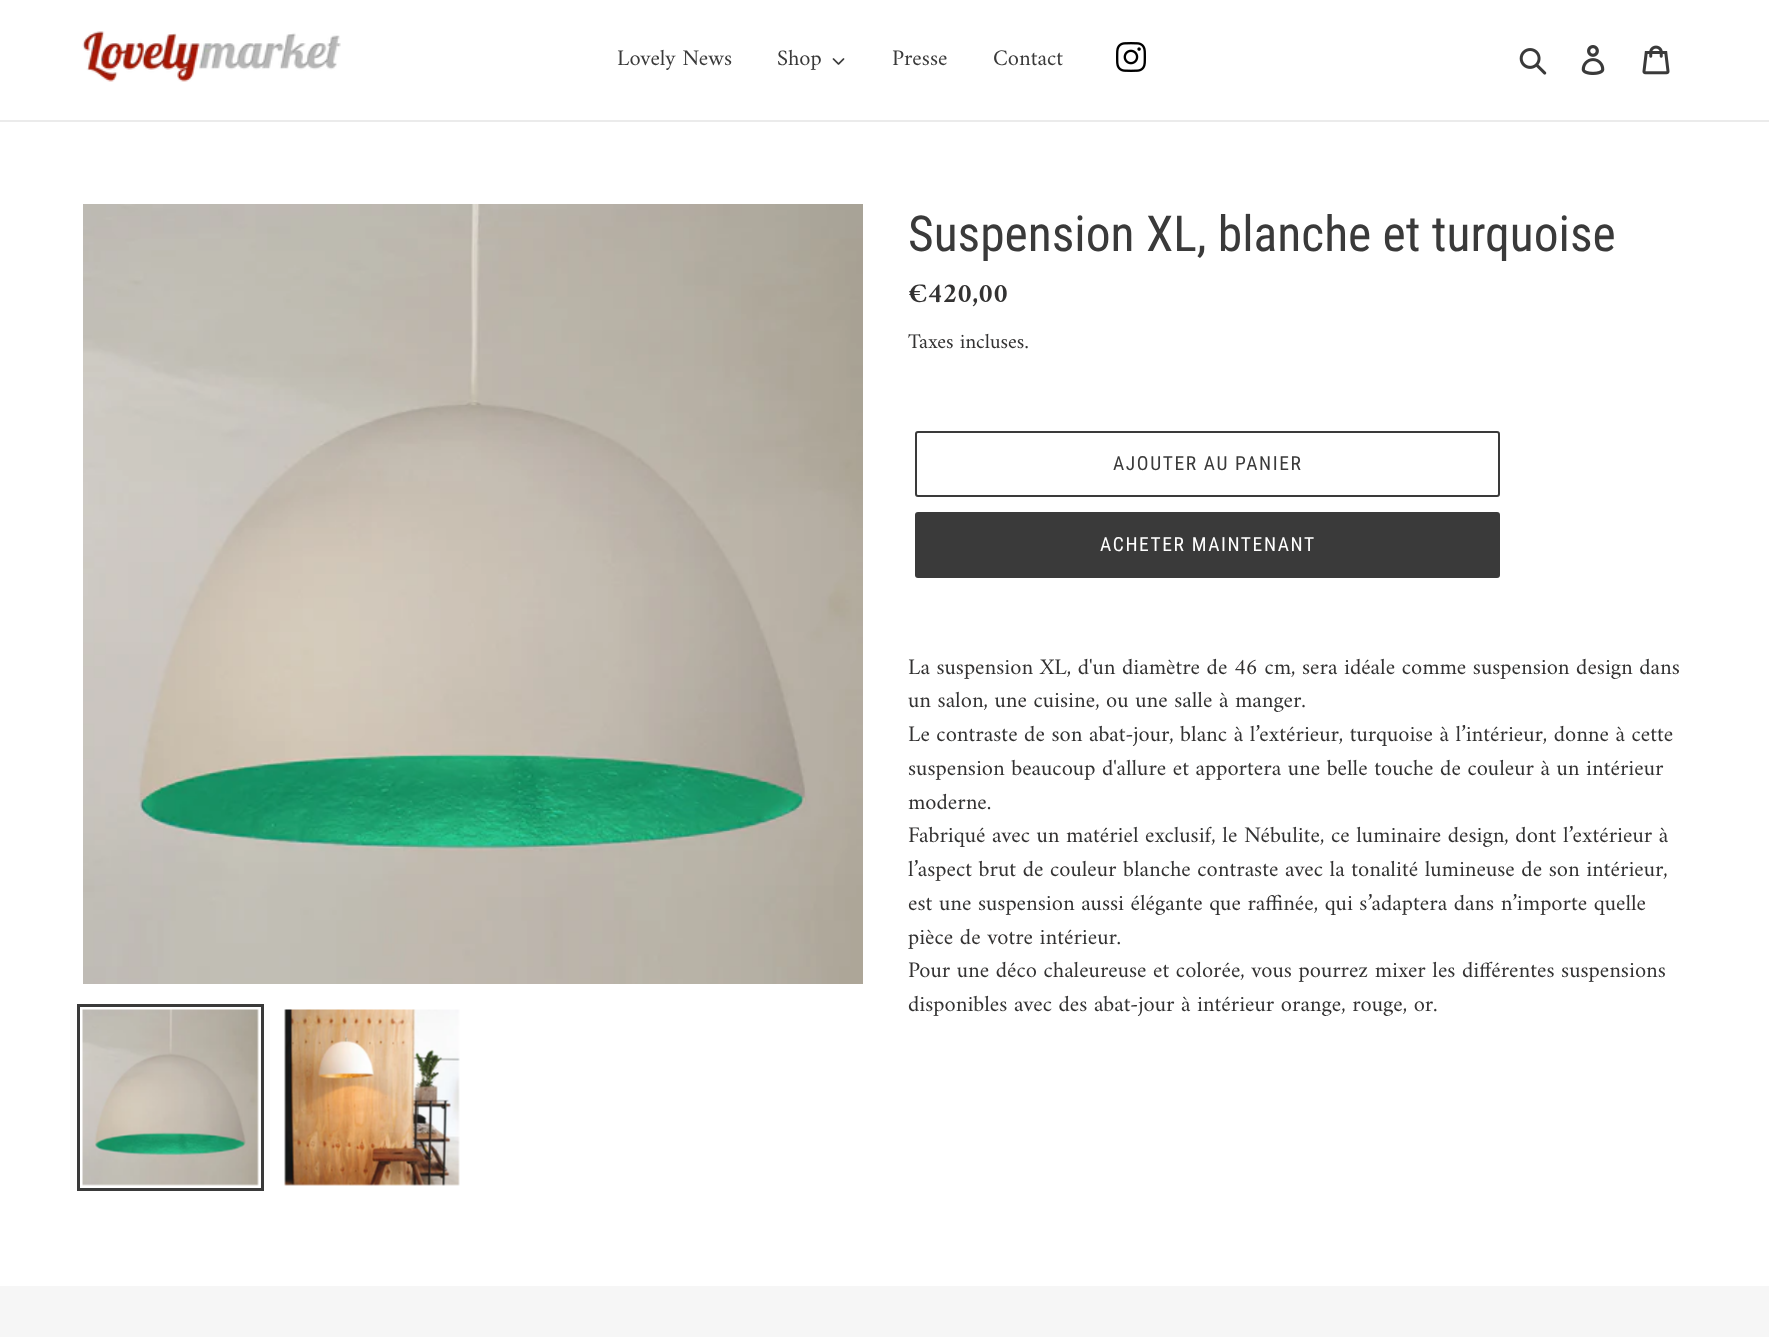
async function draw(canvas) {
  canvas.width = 1769;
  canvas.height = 1337;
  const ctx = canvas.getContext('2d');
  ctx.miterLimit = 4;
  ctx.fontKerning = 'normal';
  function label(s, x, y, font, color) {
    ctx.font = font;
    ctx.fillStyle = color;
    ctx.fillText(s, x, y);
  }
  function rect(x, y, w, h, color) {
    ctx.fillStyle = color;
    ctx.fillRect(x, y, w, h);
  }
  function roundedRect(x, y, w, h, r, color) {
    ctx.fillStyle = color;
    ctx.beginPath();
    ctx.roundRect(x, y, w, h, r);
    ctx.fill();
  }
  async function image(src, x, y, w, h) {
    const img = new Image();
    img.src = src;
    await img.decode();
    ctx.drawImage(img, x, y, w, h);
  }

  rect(0, 0, 1769, 1337, '#fff');
  rect(0, 120, 1769, 2, '#ebebeb');
  await image('assets/img1.png', 82, 31, 259, 51);
  label('Lovely News', 617, 65, '22.5px Amiri', '#3a3a3a');
  label('Shop', 777, 65, '22.5px Amiri', '#3a3a3a');
  await image('assets/img2.png', 832, 58, 13, 7);
  label('Presse', 892, 65, '22.5px Amiri', '#3a3a3a');
  label('Contact', 993, 65, '22.5px Amiri', '#3a3a3a');
  await image('assets/img3.png', 1116, 42, 30, 30);
  await image('assets/img4.png', 1519, 48, 28, 27);
  await image('assets/img5.png', 1581, 45, 24, 30);
  await image('assets/img6.png', 1642, 45, 28, 30);
  await image('assets/img7.png', 83, 204, 780, 780);
  ctx.strokeStyle = '#3a3a3a';
  ctx.lineWidth = 3;
  ctx.strokeRect(78.5, 1005.5, 184, 184);
  await image('assets/img8.png', 82, 1009, 177, 177);
  await image('assets/img9.png', 284, 1009, 176, 177);
  label('Suspension XL, blanche et turquoise', 908, 251, '49.5px Roboto Condensed', '#3a3a3a');
  label('€420,00', 908, 302, 'bold 28px Amiri', '#333232');
  label('Taxes incluses.', 908, 348, '21px Amiri', '#333232');
  ctx.beginPath();
  ctx.roundRect(916, 432, 583, 64, 2);
  ctx.lineWidth = 2;
  ctx.stroke();
  ctx.letterSpacing = '1.6px';
  label('AJOUTER AU PANIER', 1113, 470, '19.5px Roboto Condensed', '#3a3a3a');
  roundedRect(915, 512, 585, 66, 3, '#3a3a3a');
  label('ACHETER MAINTENANT', 1100, 551, '19.5px Roboto Condensed', '#fff');
  ctx.letterSpacing = '0px';
  label('La suspension XL, d\'un diamètre de 46 cm, sera idéale comme suspension design dans', 908, 674, '22.5px Amiri', '#333232');
  label('un salon, une cuisine, ou une salle à manger.', 908, 707, '22.5px Amiri', '#333232');
  label('Le contraste de son abat-jour, blanc à l’extérieur, turquoise à l’intérieur, donne à cette', 908, 741, '22.5px Amiri', '#333232');
  label('suspension beaucoup d\'allure et apportera une belle touche de couleur à un intérieur', 908, 775, '22.5px Amiri', '#333232');
  label('moderne.', 908, 809, '22.5px Amiri', '#333232');
  label('Fabriqué avec un matériel exclusif, le Nébulite, ce luminaire design, dont l’extérieur à', 908, 842, '22.5px Amiri', '#333232');
  label('l’aspect brut de couleur blanche contraste avec la tonalité lumineuse de son intérieur,', 908, 876, '22.5px Amiri', '#333232');
  label('est une suspension aussi élégante que raffinée, qui s’adaptera dans n’importe quelle', 908, 910, '22.5px Amiri', '#333232');
  label('pièce de votre intérieur.', 908, 944, '22.5px Amiri', '#333232');
  label('Pour une déco chaleureuse et colorée, vous pourrez mixer les différentes suspensions', 908, 977, '22.5px Amiri', '#333232');
  label('disponibles avec des abat-jour à intérieur orange, rouge, or.', 908, 1011, '22.5px Amiri', '#333232');
  rect(0, 1286, 1769, 51, '#f6f6f6');
}

draw(document.querySelector('canvas'));
